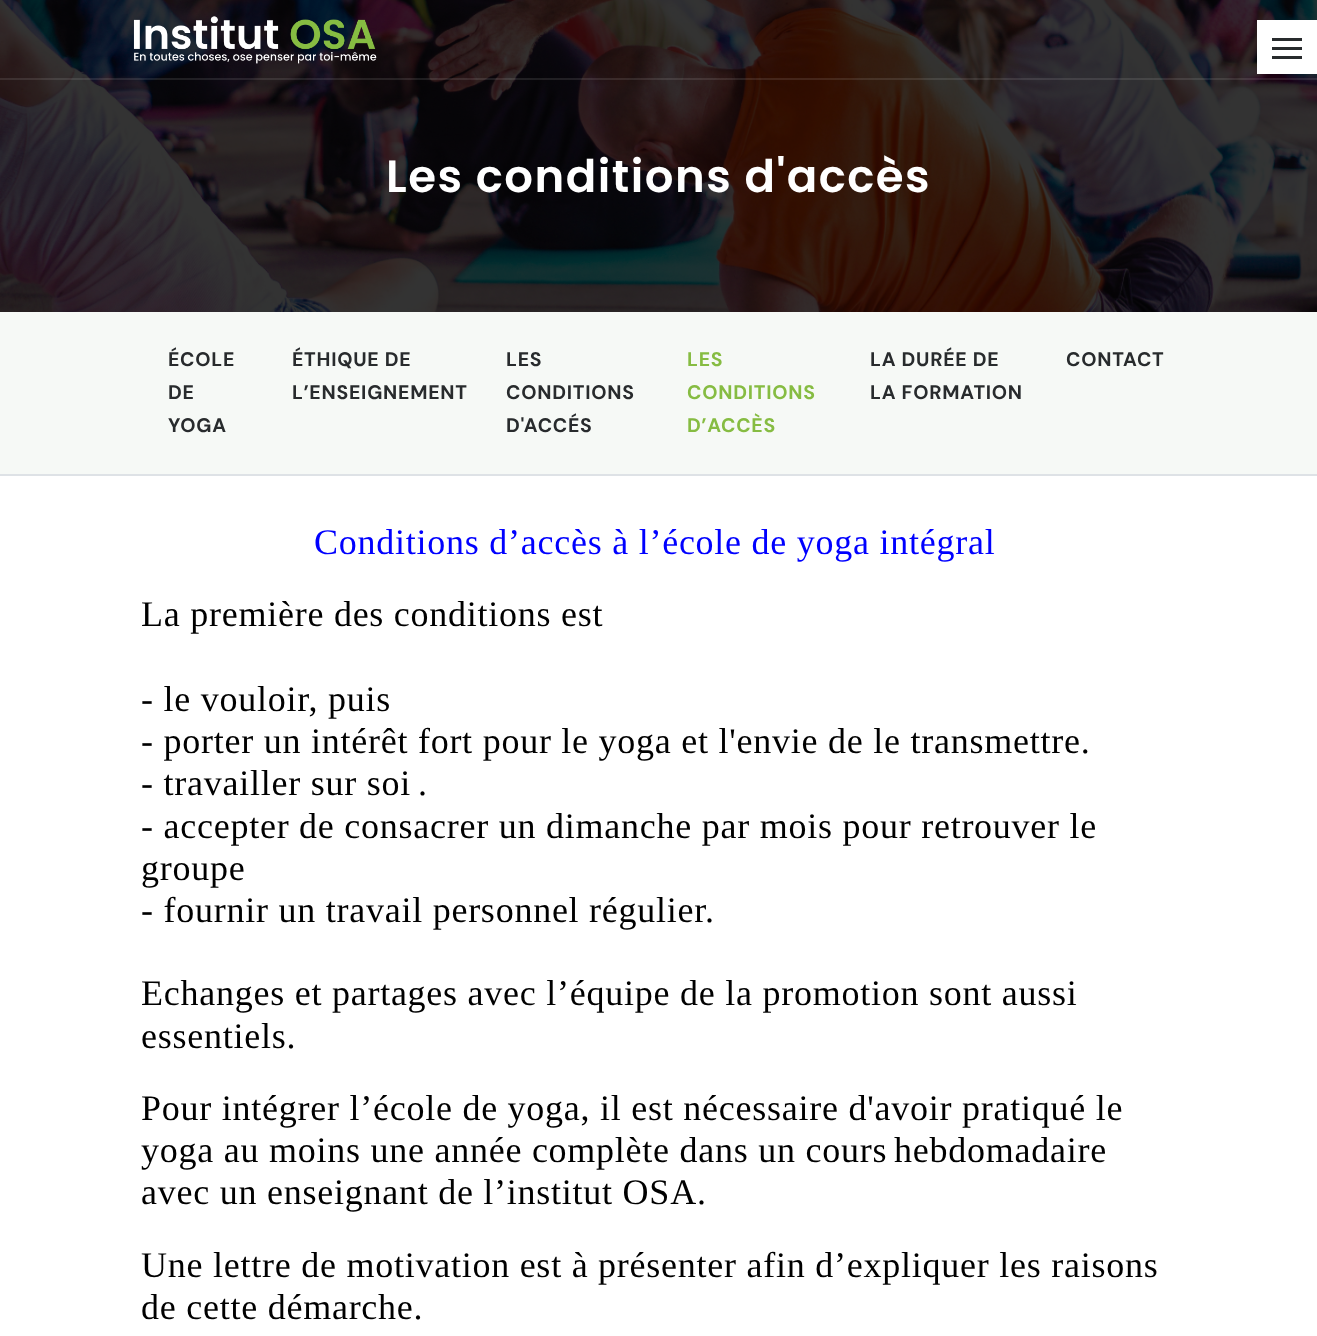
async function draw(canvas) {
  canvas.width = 1317;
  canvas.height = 1336;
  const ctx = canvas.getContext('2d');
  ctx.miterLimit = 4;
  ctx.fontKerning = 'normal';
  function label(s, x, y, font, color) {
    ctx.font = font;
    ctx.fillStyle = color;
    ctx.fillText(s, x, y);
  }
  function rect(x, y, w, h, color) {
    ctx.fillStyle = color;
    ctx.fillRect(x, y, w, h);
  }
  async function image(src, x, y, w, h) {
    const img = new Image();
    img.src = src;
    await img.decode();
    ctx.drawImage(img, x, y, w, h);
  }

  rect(0, 0, 1317, 1336, '#fff');
  await image('assets/img2.png', 0, 0, 1317, 312);
  rect(0, 78, 1317, 2, '#ffffff1a');
  await image('assets/img1.png', 133, 16, 244, 48);
  rect(1257, 20, 60, 54, '#fff');
  rect(1272, 38, 30, 3, '#282b2d');
  rect(1272, 47, 30, 3, '#282b2d');
  rect(1272, 56, 30, 3, '#282b2d');
  ctx.letterSpacing = '1.5px';
  label('Les conditions d\'accès', 386, 192, '600 45px Poppins', '#fff');
  rect(0, 312, 1317, 162, '#f6f9f6');
  rect(0, 474, 1317, 2, '#dee2e6');
  ctx.letterSpacing = '0.75px';
  label('ÉCOLE', 168, 366, 'bold 19.5px DM Sans', '#282b2d');
  label('DE', 168, 399, 'bold 19.5px DM Sans', '#282b2d');
  label('YOGA', 168, 432, 'bold 19.5px DM Sans', '#282b2d');
  label('ÉTHIQUE DE', 292, 366, 'bold 19.5px DM Sans', '#282b2d');
  label('L’ENSEIGNEMENT', 292, 399, 'bold 19.5px DM Sans', '#282b2d');
  label('LES', 506, 366, 'bold 19.5px DM Sans', '#282b2d');
  label('CONDITIONS', 506, 399, 'bold 19.5px DM Sans', '#282b2d');
  label('D\'ACCÉS', 506, 432, 'bold 19.5px DM Sans', '#282b2d');
  label('LES', 687, 366, 'bold 19.5px DM Sans', '#86bc42');
  label('CONDITIONS', 687, 399, 'bold 19.5px DM Sans', '#86bc42');
  label('D’ACCÈS', 687, 432, 'bold 19.5px DM Sans', '#86bc42');
  label('LA DURÉE DE', 870, 366, 'bold 19.5px DM Sans', '#282b2d');
  label('LA FORMATION', 870, 399, 'bold 19.5px DM Sans', '#282b2d');
  label('CONTACT', 1066, 366, 'bold 19.5px DM Sans', '#282b2d');
  label('Conditions d’accès à l’école de yoga intégral', 314, 554, '36px Liberation Serif', '#00f');
  label('La première des conditions est', 141, 626, '36px Liberation Serif', '#000');
  label('- le vouloir, puis', 141, 711, '36px Liberation Serif', '#000');
  label('- porter un intérêt fort pour le yoga et l\'envie de le transmettre.', 141, 753, '36px Liberation Serif', '#000');
  label('- travailler sur soi', 141, 795, '36px Liberation Serif', '#000');
  label('.', 418, 795, '36px Liberation Serif', '#000');
  label('- accepter de consacrer un dimanche par mois pour retrouver le', 141, 838, '36px Liberation Serif', '#000');
  label('groupe', 141, 880, '36px Liberation Serif', '#000');
  label('- fournir un travail personnel régulier.', 141, 922, '36px Liberation Serif', '#000');
  label('Echanges et partages avec l’équipe de la promotion sont aussi', 141, 1005, '36px Liberation Serif', '#000');
  label('essentiels.', 141, 1048, '36px Liberation Serif', '#000');
  label('Pour intégrer l’école de yoga, il est nécessaire d\'avoir pratiqué le', 141, 1120, '36px Liberation Serif', '#000');
  label('yoga au moins une année complète dans un cours', 141, 1162, '36px Liberation Serif', '#000');
  label('hebdomadaire', 894, 1162, '36px Liberation Serif', '#000');
  label('avec un enseignant de l’institut OSA.', 141, 1204, '36px Liberation Serif', '#000');
  label('Une lettre de motivation est à présenter afin d’expliquer les raisons', 141, 1277, '36px Liberation Serif', '#000');
  label('de cette démarche.', 141, 1319, '36px Liberation Serif', '#000');
}

draw(document.querySelector('canvas'));
